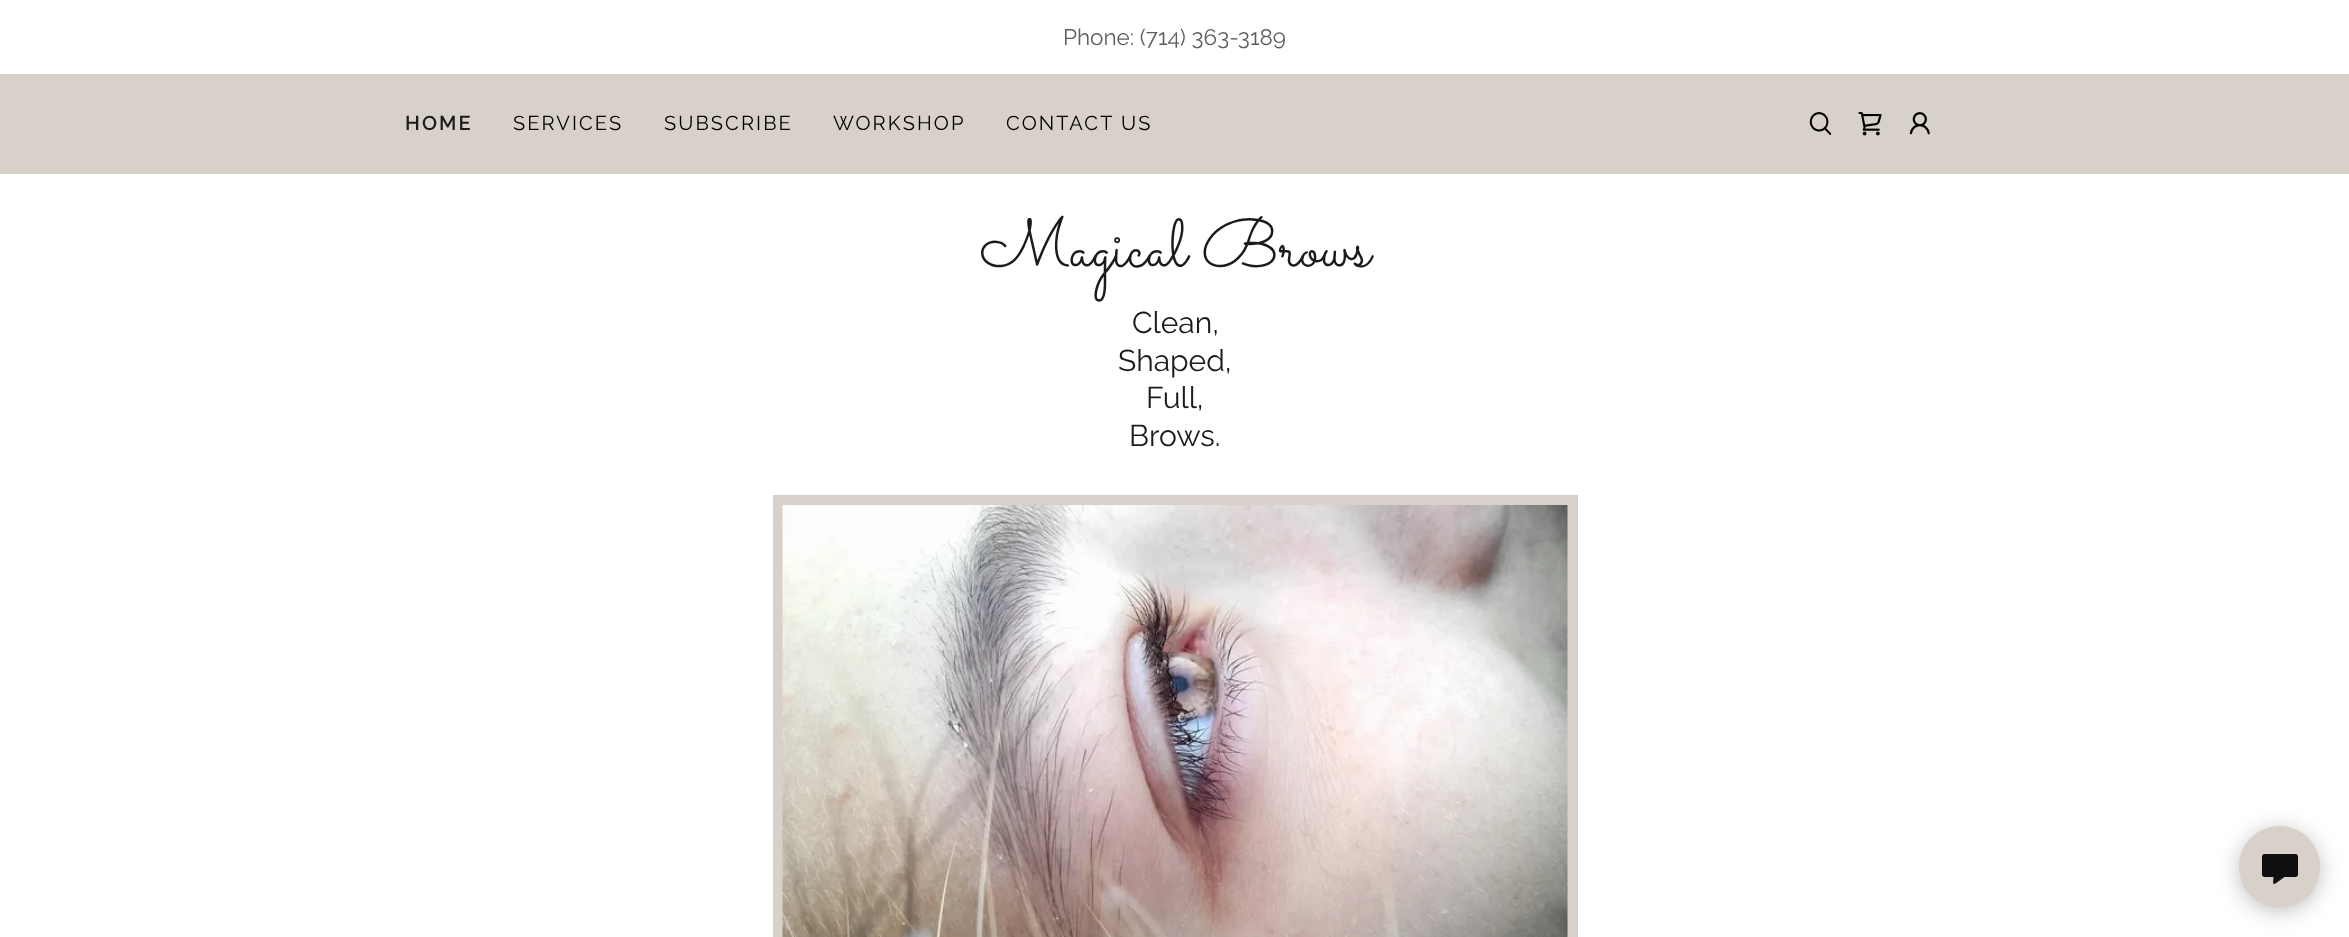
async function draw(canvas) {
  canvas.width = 2349;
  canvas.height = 937;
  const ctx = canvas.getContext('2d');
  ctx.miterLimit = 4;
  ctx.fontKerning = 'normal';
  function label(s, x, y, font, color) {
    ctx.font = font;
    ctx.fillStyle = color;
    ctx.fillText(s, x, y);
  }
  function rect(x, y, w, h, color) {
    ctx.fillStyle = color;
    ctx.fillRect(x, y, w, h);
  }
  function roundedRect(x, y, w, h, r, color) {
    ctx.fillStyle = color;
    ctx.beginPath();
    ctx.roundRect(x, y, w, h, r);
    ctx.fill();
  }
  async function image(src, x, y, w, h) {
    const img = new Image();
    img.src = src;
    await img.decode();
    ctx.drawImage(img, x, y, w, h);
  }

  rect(0, 0, 2349, 937, '#fff');
  label('Phone: (714) 363-3189', 1063, 45, '22.5px Raleway', '#5e5e5e');
  rect(0, 74, 2349, 100, '#d8d1ca');
  ctx.letterSpacing = '2.1px';
  label('HOME', 405, 130, '600 20px Raleway', '#1b1b1b');
  label('SERVICES', 513, 130, '20px Raleway', '#000');
  label('SUBSCRIBE', 664, 130, '20px Raleway', '#000');
  label('WORKSHOP', 833, 130, '20px Raleway', '#000');
  label('CONTACT US', 1006, 130, '20px Raleway', '#000');
  await image('assets/img1.png', 1809, 112, 23, 23);
  await image('assets/img2.png', 1858, 112, 24, 24);
  await image('assets/img3.png', 1909, 112, 21, 23);
  ctx.letterSpacing = '0px';
  label('Magical Brows', 980, 266, '67.5px Sacramento', '#1b1b1b');
  label('Clean,', 1132, 333, '30px Raleway', '#1b1b1b');
  label('Shaped,', 1118, 371, '30px Raleway', '#1b1b1b');
  label('Full,', 1146, 408, '30px Raleway', '#1b1b1b');
  label('Brows.', 1129, 446, '30px Raleway', '#1b1b1b');
  rect(773, 495, 805, 442, '#d8d1ca');
  await image('assets/img4.png', 782, 505, 786, 432);
  ctx.fillStyle = '#00000040';
  ctx.filter = 'blur(11px)';
  ctx.beginPath();
  ctx.roundRect(2239, 830, 81, 81, 40.5);
  ctx.fill();
  ctx.filter = 'none';
  roundedRect(2239, 826, 81, 82, 40.5, '#d8d1ca');
  await image('assets/img5.png', 2262, 854, 36, 30);
}

draw(document.querySelector('canvas'));
